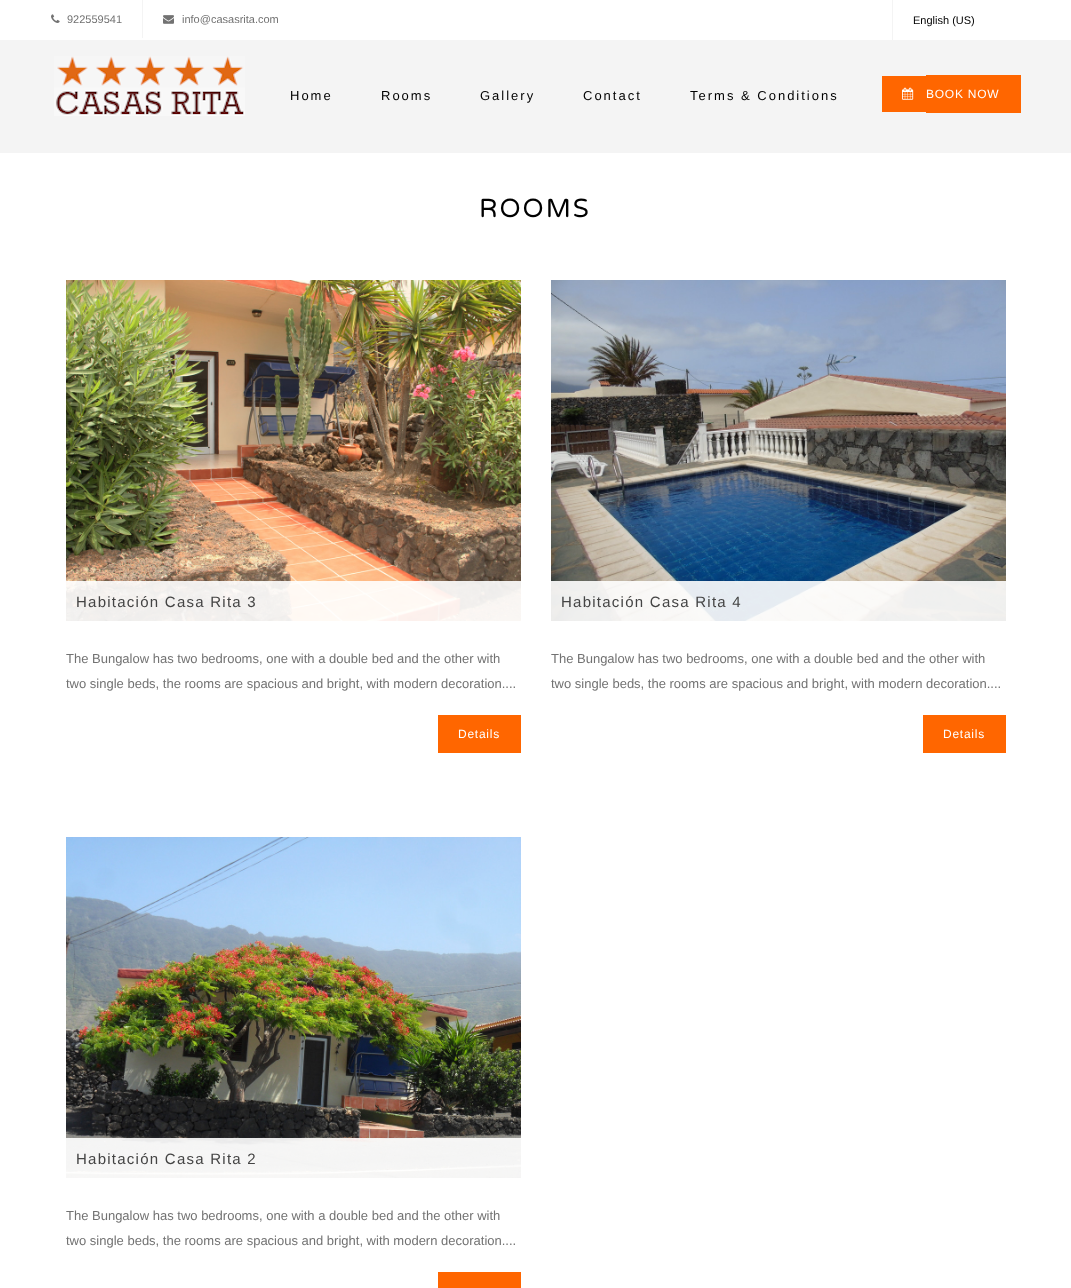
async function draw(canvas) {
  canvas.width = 1071;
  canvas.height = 1288;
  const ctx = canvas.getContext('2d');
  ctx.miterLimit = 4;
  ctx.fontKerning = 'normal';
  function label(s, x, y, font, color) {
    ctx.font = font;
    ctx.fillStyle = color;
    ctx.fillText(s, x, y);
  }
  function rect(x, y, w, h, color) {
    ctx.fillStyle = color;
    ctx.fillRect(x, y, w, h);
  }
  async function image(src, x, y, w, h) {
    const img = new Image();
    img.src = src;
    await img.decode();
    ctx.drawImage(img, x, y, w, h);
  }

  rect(0, 0, 1071, 1288, '#fff');
  await image('assets/img1.png', 51, 14, 9, 9);
  label('922559541', 67, 23, '11px Liberation Sans', '#727272');
  rect(142, 0, 1, 38, '#f4f4f4');
  await image('assets/img2.png', 163, 15, 11, 9);
  label('info@casasrita.com', 182, 23, '11px Liberation Sans', '#727272');
  rect(892, 0, 1, 40, '#f4f4f4');
  label('English (US)', 913, 24, '11px Liberation Sans', '#000');
  rect(0, 40, 1071, 113, '#f4f4f4');
  await image('assets/img3.png', 54, 56, 191, 60);
  ctx.letterSpacing = '2px';
  label('Home', 290, 100, '13px Liberation Sans', '#000');
  label('Rooms', 381, 100, '13px Liberation Sans', '#000');
  label('Gallery', 480, 100, '13px Liberation Sans', '#000');
  label('Contact', 583, 100, '13px Liberation Sans', '#000');
  label('Terms & Conditions', 690, 100, '13px Liberation Sans', '#000');
  rect(882, 76, 44, 36, '#f60');
  rect(926, 75, 95, 38, '#f60');
  await image('assets/img4.png', 902, 87, 12, 13);
  ctx.letterSpacing = '0.75px';
  label('BOOK NOW', 926, 98, '12px Liberation Sans', '#fff');
  ctx.letterSpacing = '2px';
  label('ROOMS', 479, 217, '26px Varela Round', '#000');
  await image('assets/img5.png', 66, 280, 455, 341);
  rect(66, 581, 455, 40, '#ffffffe6');
  ctx.letterSpacing = '1.25px';
  label('Habitación Casa Rita 3', 76, 607, '15px Liberation Sans', '#444');
  ctx.letterSpacing = '0px';
  label('The Bungalow has two bedrooms, one with a double bed and the other with', 66, 663, '13px Liberation Sans', '#727272');
  label('two single beds, the rooms are spacious and bright, with modern decoration....', 66, 688, '13px Liberation Sans', '#727272');
  rect(438, 715, 83, 38, '#f60');
  ctx.letterSpacing = '0.75px';
  label('Details', 458, 738, '12px Liberation Sans', '#fff');
  await image('assets/img6.png', 551, 280, 455, 341);
  rect(551, 581, 455, 40, '#ffffffe6');
  ctx.letterSpacing = '1.25px';
  label('Habitación Casa Rita 4', 561, 607, '15px Liberation Sans', '#444');
  ctx.letterSpacing = '0px';
  label('The Bungalow has two bedrooms, one with a double bed and the other with', 551, 663, '13px Liberation Sans', '#727272');
  label('two single beds, the rooms are spacious and bright, with modern decoration....', 551, 688, '13px Liberation Sans', '#727272');
  rect(923, 715, 83, 38, '#f60');
  ctx.letterSpacing = '0.75px';
  label('Details', 943, 738, '12px Liberation Sans', '#fff');
  await image('assets/img7.png', 66, 837, 455, 341);
  rect(66, 1138, 455, 40, '#ffffffe6');
  ctx.letterSpacing = '1.25px';
  label('Habitación Casa Rita 2', 76, 1164, '15px Liberation Sans', '#444');
  ctx.letterSpacing = '0px';
  label('The Bungalow has two bedrooms, one with a double bed and the other with', 66, 1220, '13px Liberation Sans', '#727272');
  label('two single beds, the rooms are spacious and bright, with modern decoration....', 66, 1245, '13px Liberation Sans', '#727272');
  rect(438, 1272, 83, 16, '#f60');
}

draw(document.querySelector('canvas'));
